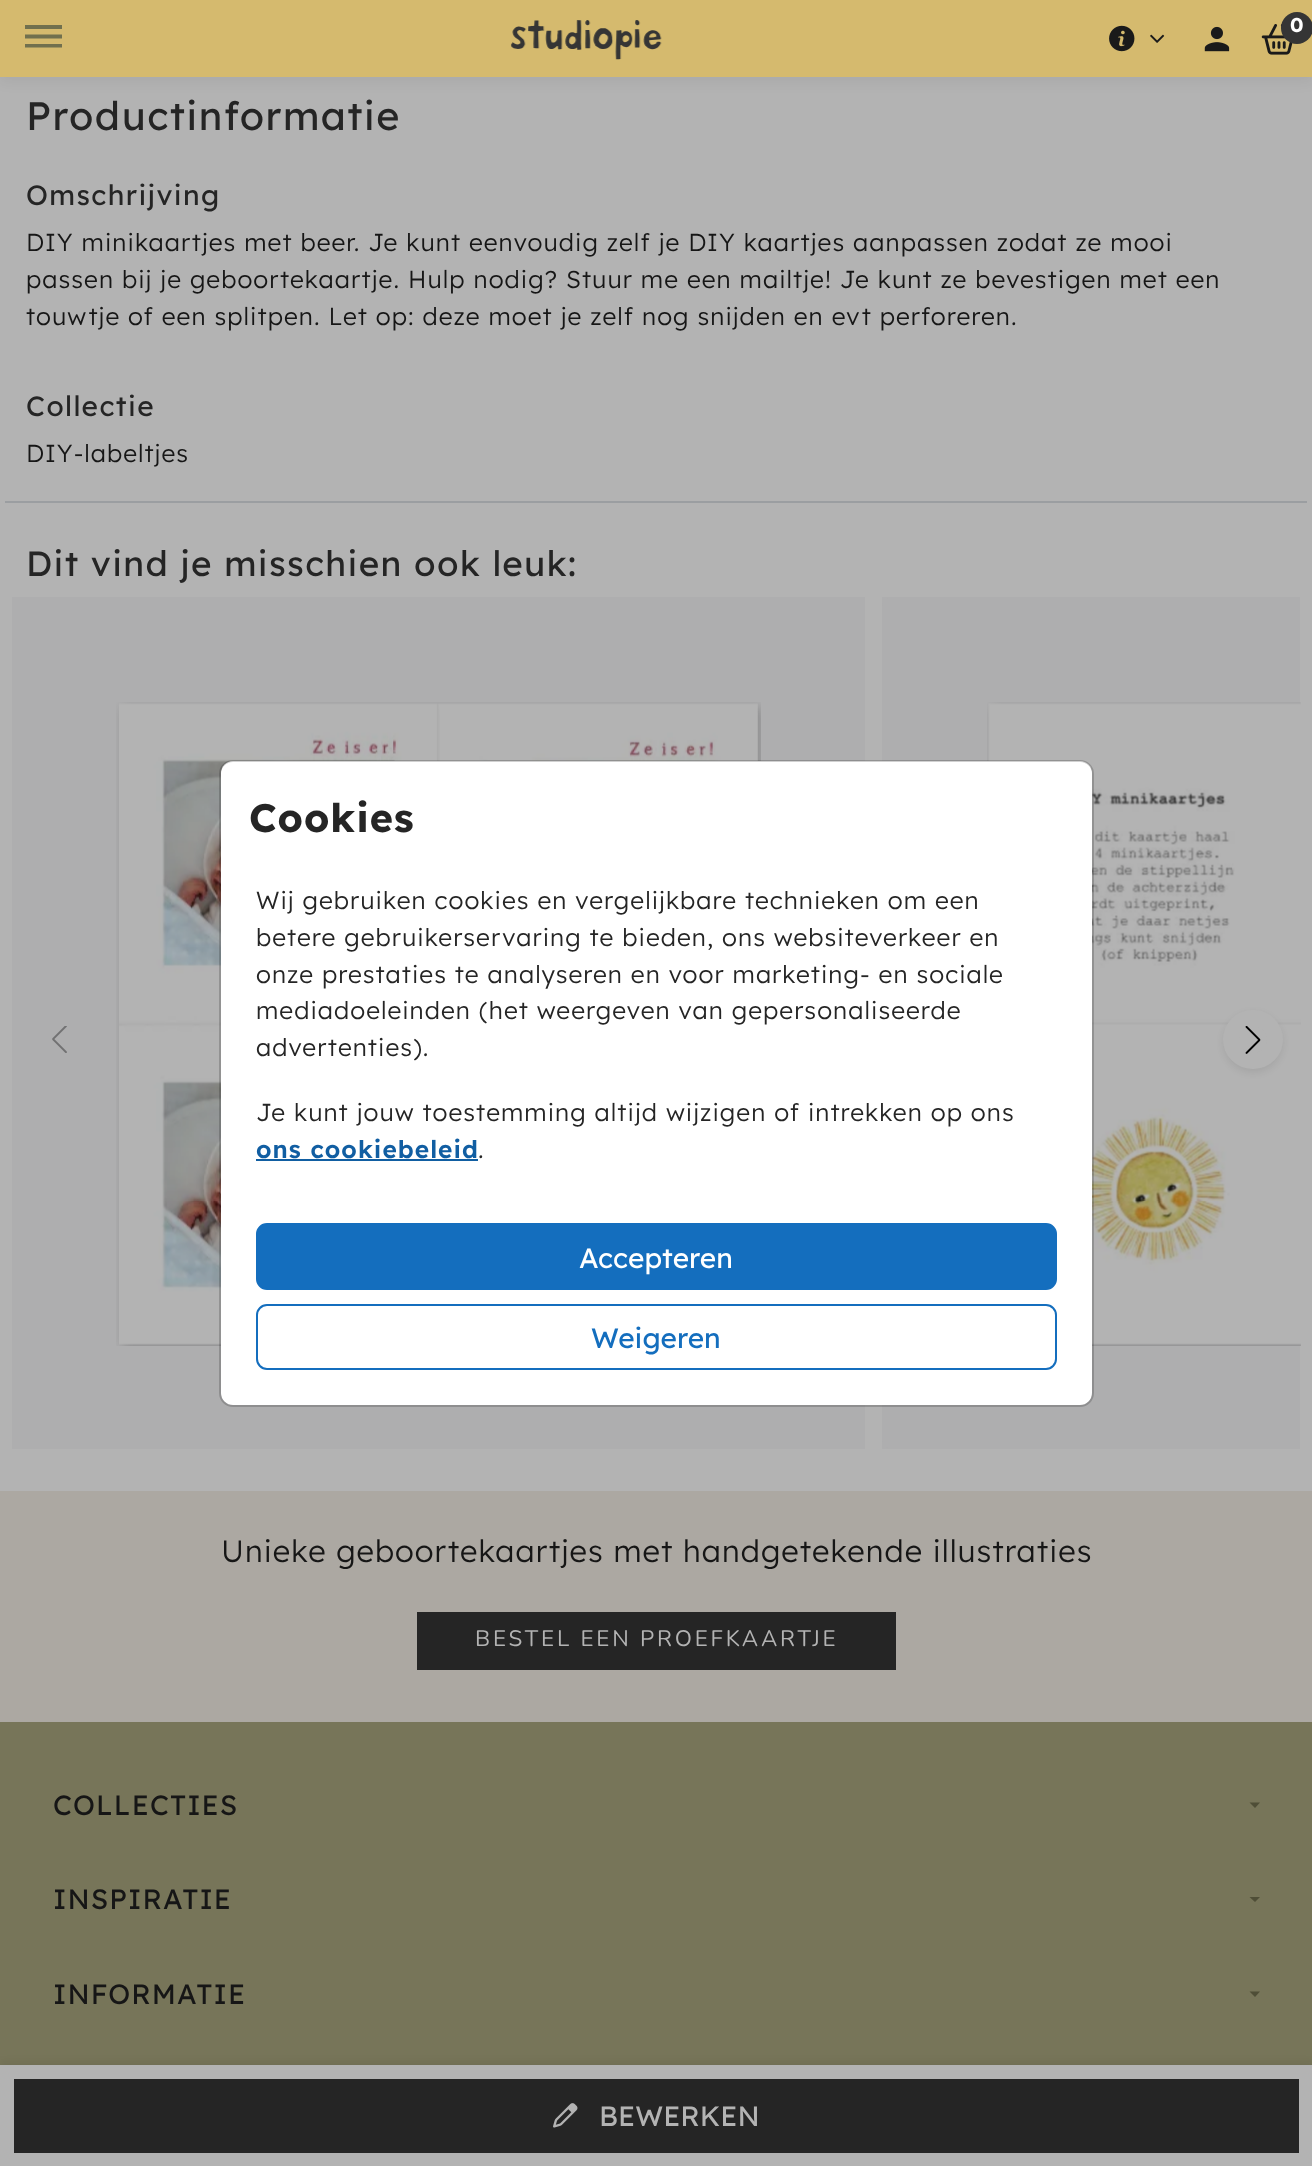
async function draw(canvas) {
  canvas.width = 1312;
  canvas.height = 2166;
  const ctx = canvas.getContext('2d');
  ctx.miterLimit = 4;
  ctx.fontKerning = 'normal';
  function label(s, x, y, font, color) {
    ctx.font = font;
    ctx.fillStyle = color;
    ctx.fillText(s, x, y);
  }
  function rect(x, y, w, h, color) {
    ctx.fillStyle = color;
    ctx.fillRect(x, y, w, h);
  }
  function roundedRect(x, y, w, h, r, color) {
    ctx.fillStyle = color;
    ctx.beginPath();
    ctx.roundRect(x, y, w, h, r);
    ctx.fill();
  }
  async function image(src, x, y, w, h) {
    const img = new Image();
    img.src = src;
    await img.decode();
    ctx.drawImage(img, x, y, w, h);
  }
  let path;

  rect(0, 0, 1312, 2166, '#b3b3b3');
  ctx.fillStyle = '#0000000f';
  ctx.filter = 'blur(7px)';
  ctx.beginPath();
  ctx.rect(0, 4, 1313, 77);
  ctx.fill();
  ctx.filter = 'none';
  rect(0, 0, 1312, 77, '#d5ba6e');
  ctx.fillStyle = '#71704e';
  path = new Path2D('M25 25H62V29H25ZM25 34.5H62V38.5H25ZM25 44H62V47.5H25Z');
  ctx.fill(path);
  await image('assets/img1.png', 510, 20, 152, 40);
  await image('assets/img2.png', 1109, 25, 26, 27);
  await image('assets/img3.png', 1150, 34, 15, 9);
  await image('assets/img4.png', 1204, 26, 26, 26);
  await image('assets/img5.png', 1261, 24, 32, 31);
  ctx.fillStyle = '#353535';
  ctx.beginPath();
  ctx.arc(1297, 28, 16, 0, 2 * Math.PI);
  ctx.fill();
  ctx.letterSpacing = '1.05px';
  label('0', 1290, 32, 'bold 20px Lexend', '#fff');
  rect(5, 501, 1302, 2, '#9b9ea1');
  ctx.letterSpacing = '1.4px';
  label('Productinformatie', 26, 130, '39.6px Lexend', '#252525');
  label('Omschrijving', 26, 205, '28px Lexend', '#252525');
  ctx.letterSpacing = '1.05px';
  label('DIY minikaartjes met beer. Je kunt eenvoudig zelf je DIY kaartjes aanpassen zodat ze mooi', 26, 251, '300 24.5px Lexend', '#161616');
  label('passen bij je geboortekaartje. Hulp nodig? Stuur me een mailtje! Je kunt ze bevestigen met een', 26, 288, '300 24.5px Lexend', '#161616');
  label('touwtje of een splitpen. Let op: deze moet je zelf nog snijden en evt perforeren.', 26, 325, '300 24.5px Lexend', '#161616');
  ctx.letterSpacing = '1.4px';
  label('Collectie', 26, 416, '28px Lexend', '#252525');
  ctx.letterSpacing = '1.05px';
  label('DIY-labeltjes', 26, 462, '300 24.5px Lexend', '#161616');
  ctx.letterSpacing = '1.4px';
  label('Dit vind je misschien ook leuk:', 26, 576, '35px Lexend', '#252525');
  rect(12, 597, 853, 852, '#aeaeaf');
  await image('assets/img6.png', 116, 702, 645, 644);
  rect(882, 597, 9, 852, '#aeaeaf');
  ctx.beginPath();
  ctx.roundRect(882, 597, 418, 852, [9, 0, 0, 9]);
  ctx.fill();
  await image('assets/img7.png', 987, 702, 314, 644);
  await image('assets/img8.png', 52, 1026, 15, 27);
  ctx.fillStyle = '#00000012';
  ctx.filter = 'blur(3.5px)';
  ctx.beginPath();
  ctx.roundRect(1223, 1013, 60, 60, 30);
  ctx.fill();
  ctx.filter = 'none';
  ctx.fillStyle = '#b3b3b3';
  ctx.beginPath();
  ctx.roundRect(1231, 1018, 44, 43, 21.5);
  ctx.fill();
  ctx.strokeStyle = '#b3b3b3';
  ctx.lineWidth = 16;
  ctx.stroke();
  await image('assets/img9.png', 1245, 1026, 16, 28);
  rect(0, 1722, 1312, 343, '#777559');
  ctx.fillStyle = '#12121212';
  ctx.filter = 'blur(3.5px)';
  ctx.beginPath();
  ctx.rect(0, 2062, 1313, 101);
  ctx.fill();
  ctx.filter = 'none';
  rect(0, 2065, 1312, 101, '#b3b3b3');
  rect(14, 2079, 1285, 74, '#252525');
  await image('assets/img10.png', 553, 2103, 25, 25);
  ctx.letterSpacing = '0px';
  label('BEWERKEN', 599, 2126, '28px Lexend', '#b3b3b3');
  roundedRect(221, 761, 871, 644, 12, '#fff');
  ctx.beginPath();
  ctx.roundRect(220, 761, 873, 645, 13);
  ctx.strokeStyle = '#0000002e';
  ctx.lineWidth = 2;
  ctx.stroke();
  ctx.letterSpacing = '1.05px';
  label('Cookies', 249, 832, 'bold 39.6px Lexend', '#252525');
  label('Wij gebruiken cookies en vergelijkbare technieken om een', 256, 909, '300 24.5px Lexend', '#252525');
  label('betere gebruikerservaring te bieden, ons websiteverkeer en', 256, 946, '300 24.5px Lexend', '#252525');
  label('onze prestaties te analyseren en voor marketing- en sociale', 256, 983, '300 24.5px Lexend', '#252525');
  label('mediadoeleinden (het weergeven van gepersonaliseerde', 256, 1019, '300 24.5px Lexend', '#252525');
  label('advertenties).', 256, 1056, '300 24.5px Lexend', '#252525');
  label('Je kunt jouw toestemming altijd wijzigen of intrekken op ons', 256, 1121, '300 24.5px Lexend', '#252525');
  label('ons cookiebeleid', 256, 1158, '600 24.5px Lexend', '#115ea2');
  rect(256, 1159, 222, 2, '#115ea2');
  label('.', 478, 1158, '300 24.5px Lexend', '#252525');
  ctx.fillStyle = '#146ebe';
  ctx.beginPath();
  ctx.roundRect(257, 1224, 799, 65, 10);
  ctx.fill();
  ctx.strokeStyle = '#146ebe';
  ctx.stroke();
  ctx.letterSpacing = '0px';
  label('Accepteren', 579, 1268, '28px Lexend', '#fff');
  ctx.beginPath();
  ctx.roundRect(257, 1305, 799, 64, 10);
  ctx.stroke();
  label('Weigeren', 591, 1348, '28px Lexend', '#146ebe');
  rect(0, 1491, 1312, 231, '#aca8a2');
  ctx.letterSpacing = '1.05px';
  label('Unieke geboortekaartjes met handgetekende illustraties', 221, 1562, '300 30.8px Lexend', '#161616');
  rect(417, 1612, 479, 58, '#252525');
  ctx.letterSpacing = '2.8px';
  label('BESTEL EEN PROEFKAARTJE', 475, 1646, '22.4px Nunito', '#b3b3b3');
  ctx.letterSpacing = '1.05px';
  label('COLLECTIES', 53, 1815, '28px Lexend', '#161616');
  ctx.fillStyle = '#4f4e37';
  path = new Path2D('M1249.5 1802.5H1260L1255 1808Z');
  ctx.fill(path);
  label('INSPIRATIE', 53, 1909, '28px Lexend', '#161616');
  ctx.fillStyle = '#4f4e37';
  path = new Path2D('M1249.5 1897H1260L1255 1902Z');
  ctx.fill(path);
  label('INFORMATIE', 53, 2004, '28px Lexend', '#161616');
  ctx.fillStyle = '#4f4e37';
  path = new Path2D('M1249.5 1991.5H1260L1255 1997Z');
  ctx.fill(path);
}

draw(document.querySelector('canvas'));
